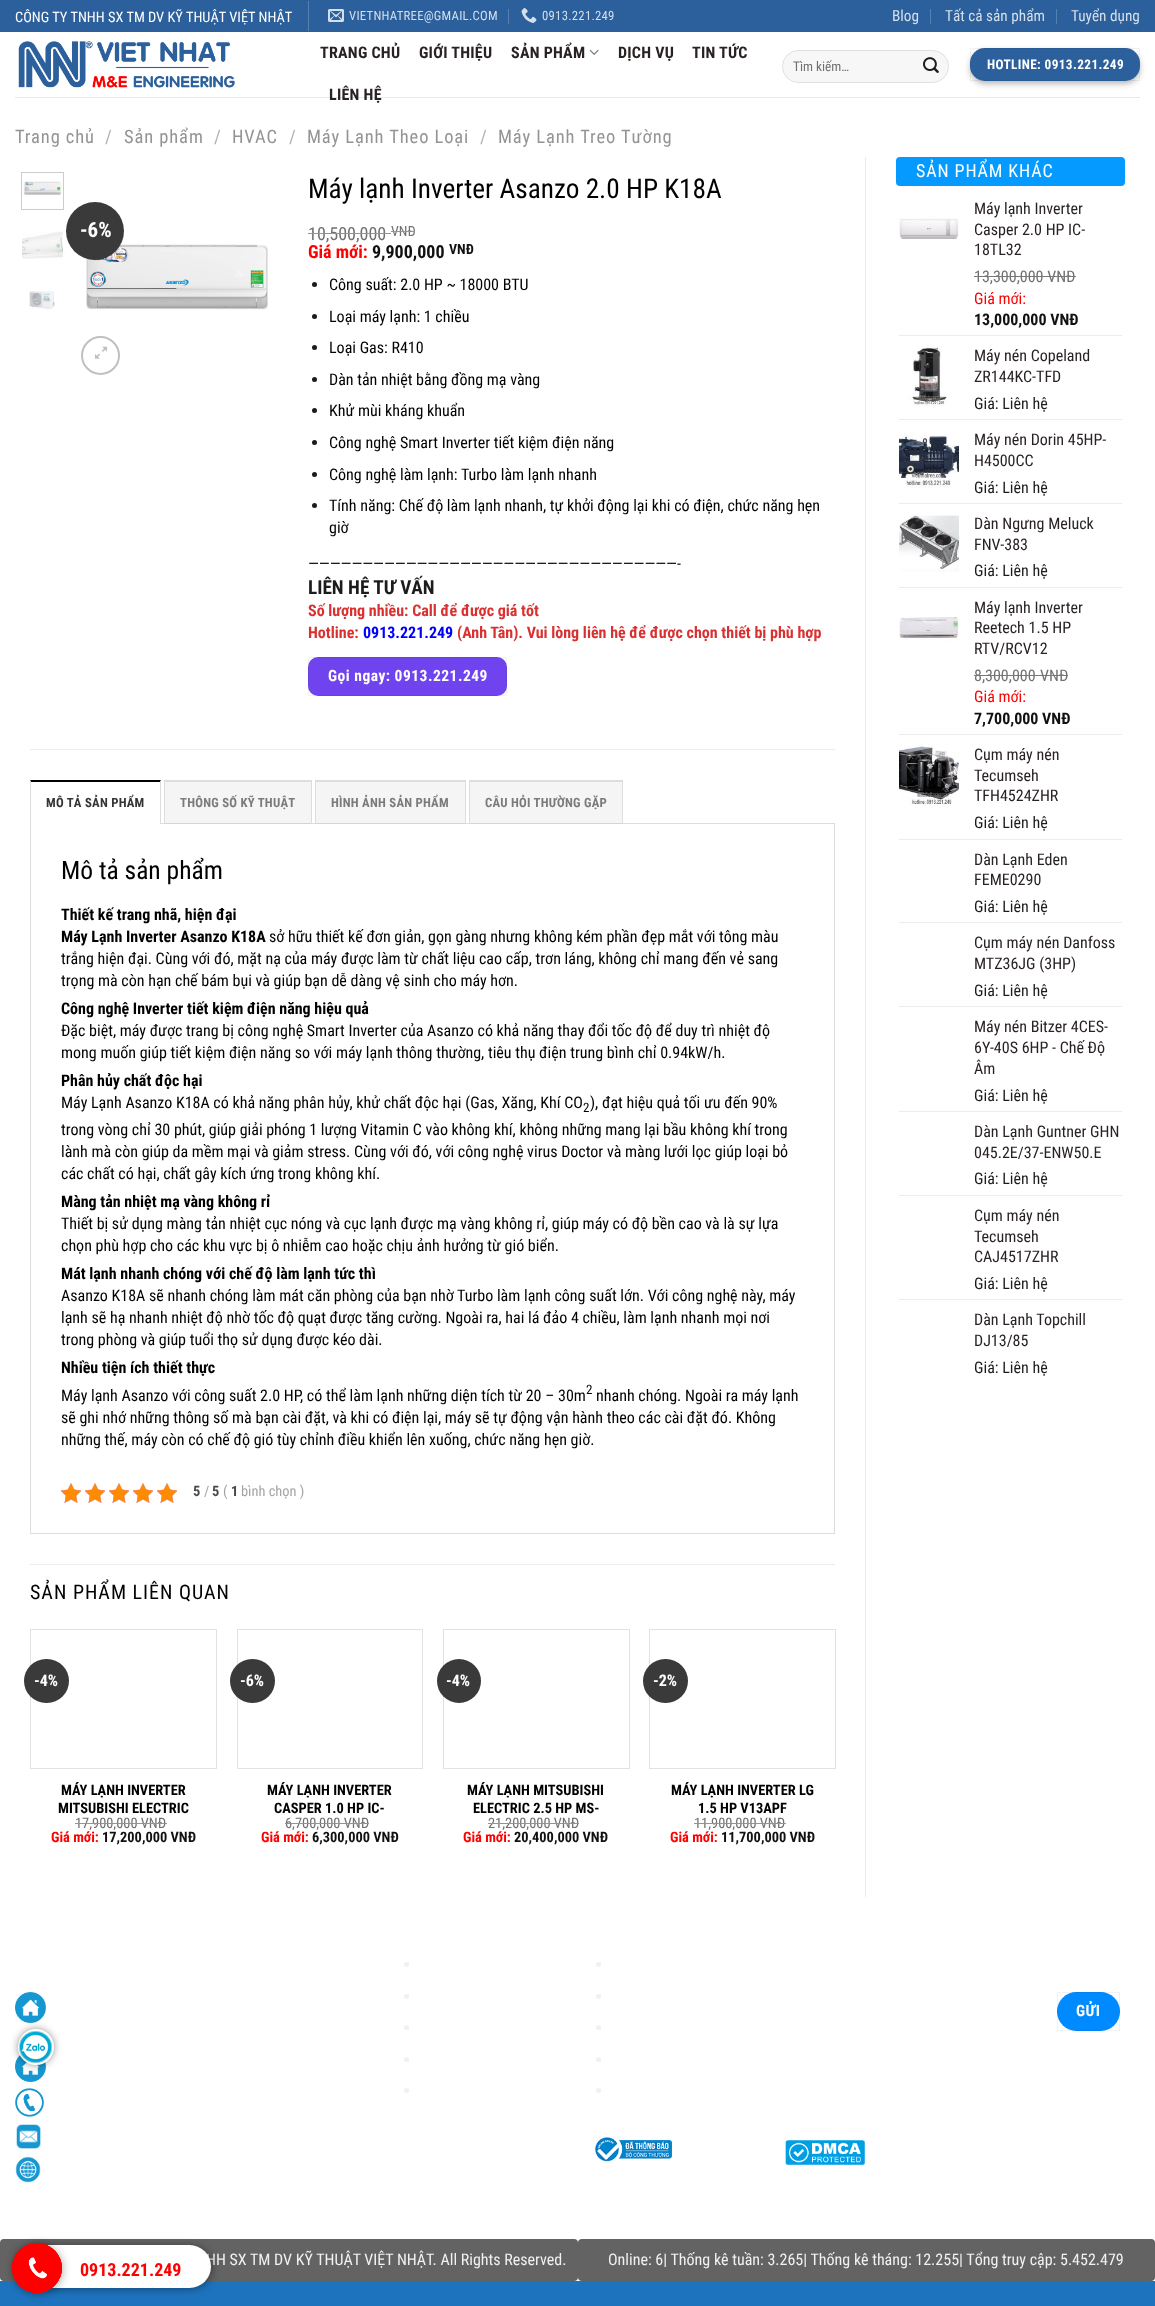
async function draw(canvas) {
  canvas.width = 1155;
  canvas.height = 2306;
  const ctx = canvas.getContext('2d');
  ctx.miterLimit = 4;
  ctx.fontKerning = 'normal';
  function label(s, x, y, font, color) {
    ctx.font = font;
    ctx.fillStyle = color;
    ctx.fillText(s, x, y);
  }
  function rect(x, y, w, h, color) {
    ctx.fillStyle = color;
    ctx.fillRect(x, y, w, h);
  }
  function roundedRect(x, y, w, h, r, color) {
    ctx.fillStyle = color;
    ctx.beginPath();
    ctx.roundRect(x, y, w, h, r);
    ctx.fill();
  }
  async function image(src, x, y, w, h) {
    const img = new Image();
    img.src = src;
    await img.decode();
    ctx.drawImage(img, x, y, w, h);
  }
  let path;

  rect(0, 0, 1155, 2306, '#1e73be');
  rect(0, 32, 1155, 2249, '#fff');
  rect(0, 0, 1155, 32, '#2c609c');
  label('CÔNG TY TNHH SX TM DV KỸ THUẬT VIỆT NHẬT', 15, 22, '14.4px Roboto Condensed', '#fff');
  rect(308, 1, 1, 30, '#5680b0');
  await image('assets/img1.png', 328, 9, 16, 13);
  ctx.letterSpacing = '0.25px';
  label('VIETNHATREE@GMAIL.COM', 349, 20, '12.75px Roboto Condensed', '#d5dfeb');
  rect(508, 9, 1, 15, '#5680b0');
  await image('assets/img2.png', 521, 8, 16, 15);
  label('0913.221.249', 542, 20, '12.75px Roboto Condensed', '#d5dfeb');
  ctx.letterSpacing = '0px';
  label('Blog', 892, 21, '15.25px Roboto Condensed', '#d5dfeb');
  rect(930, 9, 1, 15, '#5680b0');
  label('Tất cả sản phẩm', 945, 21, '15.25px Roboto Condensed', '#d5dfeb');
  rect(1056, 9, 1, 15, '#5680b0');
  label('Tuyển dụng', 1071, 21, '15.25px Roboto Condensed', '#d5dfeb');
  await image('assets/img3.png', 18, 41, 217, 47);
  ctx.letterSpacing = '0.25px';
  label('TRANG CHỦ', 320, 58, 'bold 16px Roboto Condensed', '#292222');
  label('GIỚI THIỆU', 419, 58, 'bold 16px Roboto Condensed', '#292222');
  label('SẢN PHẨM', 511, 58, 'bold 16px Roboto Condensed', '#292222');
  await image('assets/img4.png', 589, 49, 10, 6);
  label('DỊCH VỤ', 618, 58, 'bold 16px Roboto Condensed', '#292222');
  label('TIN TỨC', 692, 58, 'bold 16px Roboto Condensed', '#292222');
  label('LIÊN HỆ', 329, 100, 'bold 16px Roboto Condensed', '#292222');
  roundedRect(782, 50, 167, 33, 16.5, '#f7f7f7');
  ctx.beginPath();
  ctx.roundRect(782.5, 50.5, 166, 32, 16);
  ctx.strokeStyle = '#00000017';
  ctx.stroke();
  ctx.letterSpacing = '0px';
  label('Tìm kiếm…', 793, 71, '13.25px Roboto Condensed', '#707070');
  await image('assets/img5.png', 923, 57, 16, 16);
  ctx.fillStyle = '#0000003b';
  ctx.filter = 'blur(3px)';
  ctx.beginPath();
  ctx.roundRect(970, 51, 170, 33, 15);
  ctx.fill();
  ctx.filter = 'none';
  ctx.fillStyle = '#00000029';
  ctx.filter = 'blur(3px)';
  ctx.beginPath();
  ctx.roundRect(974, 55, 162, 25, 11);
  ctx.fill();
  ctx.filter = 'none';
  roundedRect(970, 48, 170, 33, 15, '#2c609c');
  ctx.strokeStyle = '#0000000d';
  ctx.strokeRect(970.5, 48.5, 169, 32);
  ctx.letterSpacing = '0.4px';
  label('HOTLINE: 0913.221.249', 987, 69, 'bold 13.25px Roboto Condensed', '#fff');
  rect(15, 97, 1125, 1, '#1c1c1c1a');
  ctx.letterSpacing = '0.9px';
  label('Trang chủ', 15, 143, '18.5px Roboto Condensed', '#949494');
  label('/', 105, 143, '18.5px Roboto Condensed', '#b2b2b2');
  label('Sản phẩm', 124, 143, '18.5px Roboto Condensed', '#949494');
  label('/', 214, 143, '18.5px Roboto Condensed', '#b2b2b2');
  label('HVAC', 232, 143, '18.5px Roboto Condensed', '#949494');
  label('/', 289, 143, '18.5px Roboto Condensed', '#b2b2b2');
  label('Máy Lạnh Theo Loại', 307, 143, '18.5px Roboto Condensed', '#949494');
  label('/', 480, 143, '18.5px Roboto Condensed', '#b2b2b2');
  label('Máy Lạnh Treo Tường', 498, 143, '18.5px Roboto Condensed', '#949494');
  rect(865, 157, 1, 1740, '#ececec');
  ctx.strokeStyle = '#ccc';
  ctx.strokeRect(21.5, 172.5, 42, 37);
  await image('assets/img6.png', 22, 181, 40, 14);
  await image('assets/img7.png', 22, 231, 41, 28);
  await image('assets/img8.png', 29, 291, 26, 19);
  await image('assets/img9.png', 86, 244, 182, 66);
  ctx.fillStyle = '#3a3a3a';
  ctx.beginPath();
  ctx.arc(95, 231, 29, 0, 2 * Math.PI);
  ctx.fill();
  ctx.letterSpacing = '0px';
  label('-6%', 80, 237, 'bold 21px Roboto Condensed', '#fff');
  ctx.beginPath();
  ctx.arc(100.5, 355.5, 18.5, 0, 2 * Math.PI);
  ctx.strokeStyle = '#c0c0c0';
  ctx.lineWidth = 2;
  ctx.stroke();
  await image('assets/img10.png', 95, 346, 12, 13);
  label('Máy lạnh Inverter Asanzo 2.0 HP K18A', 308, 198, '27.25px Roboto Condensed', '#000');
  label('10,500,000', 308, 240, '18px Roboto Condensed', '#707070');
  rect(308, 233, 83, 1, '#f66');
  label('VNĐ', 391, 236, '14px Roboto Condensed', '#707070');
  rect(391, 231, 24, 1, '#f66');
  label('Giá mới:', 308, 258, 'bold 18px Roboto Condensed', '#f00');
  label('9,900,000', 372, 258, 'bold 18px Roboto Condensed', '#111');
  label('VNĐ', 449, 254, 'bold 14px Roboto Condensed', '#111');
  ctx.fillStyle = '#1c1c1c';
  ctx.beginPath();
  ctx.arc(314.5, 284.5, 2.5, 0, 2 * Math.PI);
  ctx.fill();
  label('Công suất: 2.0 HP ~ 18000 BTU', 329, 290, '16px Roboto Condensed', '#000');
  ctx.fillStyle = '#1c1c1c';
  ctx.beginPath();
  ctx.arc(314.5, 316.5, 2.5, 0, 2 * Math.PI);
  ctx.fill();
  label('Loại máy lạnh: 1 chiều', 329, 322, '16px Roboto Condensed', '#000');
  ctx.fillStyle = '#1c1c1c';
  ctx.beginPath();
  ctx.arc(314.5, 347.5, 2.5, 0, 2 * Math.PI);
  ctx.fill();
  label('Loại Gas: R410', 329, 353, '16px Roboto Condensed', '#000');
  ctx.fillStyle = '#1c1c1c';
  ctx.beginPath();
  ctx.arc(314.5, 379.5, 2.5, 0, 2 * Math.PI);
  ctx.fill();
  label('Dàn tản nhiệt bằng đồng mạ vàng', 329, 385, '16px Roboto Condensed', '#000');
  ctx.fillStyle = '#1c1c1c';
  ctx.beginPath();
  ctx.arc(314.5, 410.5, 2.5, 0, 2 * Math.PI);
  ctx.fill();
  label('Khử mùi kháng khuẩn', 329, 416, '16px Roboto Condensed', '#000');
  ctx.fillStyle = '#1c1c1c';
  ctx.beginPath();
  ctx.arc(314.5, 442.5, 2.5, 0, 2 * Math.PI);
  ctx.fill();
  label('Công nghệ Smart Inverter tiết kiệm điện năng', 329, 448, '16px Roboto Condensed', '#000');
  ctx.fillStyle = '#1c1c1c';
  ctx.beginPath();
  ctx.arc(314.5, 474.5, 2.5, 0, 2 * Math.PI);
  ctx.fill();
  label('Công nghệ làm lạnh: Turbo làm lạnh nhanh', 329, 480, '16px Roboto Condensed', '#000');
  ctx.fillStyle = '#1c1c1c';
  ctx.beginPath();
  ctx.arc(314.5, 505.5, 2.5, 0, 2 * Math.PI);
  ctx.fill();
  label('Tính năng: Chế độ làm lạnh nhanh, tự khởi động lại khi có điện, chức năng hẹn', 329, 511, '16px Roboto Condensed', '#000');
  label('giờ', 329, 533, '16px Roboto Condensed', '#000');
  label('——————————————————————————————————-', 308, 569, '16px Roboto Condensed', '#000');
  label('LIÊN HỆ TƯ VẤN', 308, 594, 'bold 19.25px Roboto Condensed', '#1c1c1c');
  label('Số lượng nhiều: Call để được giá tốt', 308, 616, 'bold 16px Roboto Condensed', '#d83131');
  label('Hotline:', 308, 638, 'bold 16px Roboto Condensed', '#d83131');
  label('0913.221.249', 363, 638, 'bold 16px Roboto Condensed', '#00f');
  label('(Anh Tân). Vui lòng liên hệ để được chọn thiết bị phù hợp', 457, 638, 'bold 16px Roboto Condensed', '#d83131');
  roundedRect(308, 657, 199, 39, 10, '#6f44ef');
  ctx.strokeStyle = '#0000000d';
  ctx.lineWidth = 1;
  ctx.strokeRect(308.5, 657.5, 198, 38);
  ctx.letterSpacing = '0.5px';
  label('Gọi ngay: 0913.221.249', 328, 681, 'bold 15.5px Roboto Condensed', '#fff');
  rect(30, 749, 805, 1, '#ececec');
  ctx.strokeStyle = '#ddd';
  ctx.strokeRect(30.5, 823.5, 804, 710);
  rect(30, 823, 131, 1, '#fff');
  ctx.fillStyle = '#000';
  path = new Path2D('M30 780H161L160 782H31Z');
  ctx.fill(path);
  ctx.fillStyle = '#ddd';
  path = new Path2D('M161 780V824H160V782Z');
  ctx.fill(path);
  path = new Path2D('M30 824V780L31 782V824Z');
  ctx.fill(path);
  ctx.letterSpacing = '0.25px';
  label('MÔ TẢ SẢN PHẨM', 46, 807, 'bold 12.75px Roboto Condensed', '#353535');
  rect(165, 782, 146, 42, '#0000000a');
  rect(164, 780, 148, 2, '#ddd');
  rect(311, 780, 1, 44, '#ddd');
  rect(164, 780, 1, 44, '#ddd');
  label('THÔNG SỐ KỸ THUẬT', 180, 807, 'bold 12.75px Roboto Condensed', '#7b7b7b');
  rect(316, 782, 149, 42, '#0000000a');
  rect(315, 780, 151, 2, '#ddd');
  rect(465, 780, 1, 44, '#ddd');
  rect(315, 780, 1, 44, '#ddd');
  label('HÌNH ẢNH SẢN PHẨM', 331, 807, 'bold 12.75px Roboto Condensed', '#7b7b7b');
  rect(470, 782, 152, 42, '#0000000a');
  rect(469, 780, 154, 2, '#ddd');
  rect(622, 780, 1, 44, '#ddd');
  rect(469, 780, 1, 44, '#ddd');
  label('CÂU HỎI THƯỜNG GẶP', 485, 807, 'bold 12.75px Roboto Condensed', '#7b7b7b');
  ctx.letterSpacing = '0px';
  label('Mô tả sản phẩm', 61, 879, '25.5px Roboto Condensed', '#000');
  label('Thiết kế trang nhã, hiện đại', 61, 920, 'bold 16px Roboto Condensed', '#000');
  label('Máy Lạnh Inverter Asanzo K18A', 61, 942, 'bold 16px Roboto Condensed', '#000');
  label('sở hữu thiết kế đơn giản, gọn gàng nhưng không kém phần đẹp mắt với tông màu', 269, 942, '16px Roboto Condensed', '#000');
  label('trắng hiện đại. Cùng với đó, mặt nạ của máy được làm từ chất liệu cao cấp, trơn láng, không chỉ mang đến vẻ sang', 61, 964, '16px Roboto Condensed', '#000');
  label('trọng mà còn hạn chế bám bụi và giúp bạn dễ dàng vệ sinh cho máy hơn.', 61, 986, '16px Roboto Condensed', '#000');
  label('Công nghệ Inverter tiết kiệm điện năng hiệu quả', 61, 1014, 'bold 16px Roboto Condensed', '#000');
  label('Đặc biệt, máy được trang bị công nghệ Smart Inverter của Asanzo có khả năng thay đổi tốc độ để duy trì nhiệt độ', 61, 1036, '16px Roboto Condensed', '#000');
  label('mong muốn giúp tiết kiệm điện năng so với máy lạnh thông thường, tiêu thụ điện trung bình chỉ 0.94kW/h.', 61, 1058, '16px Roboto Condensed', '#000');
  label('Phân hủy chất độc hại', 61, 1086, 'bold 16px Roboto Condensed', '#000');
  label('Máy Lạnh Asanzo K18A có khả năng phân hủy, khử chất độc hại (Gas, Xăng, Khí CO', 61, 1108, '16px Roboto Condensed', '#000');
  label('2', 583, 1112, '13px Roboto Condensed', '#000');
  label('), đạt hiệu quả tối ưu đến 90%', 590, 1108, '16px Roboto Condensed', '#000');
  label('trong vòng chỉ 30 phút, giúp giải phóng 1 lượng Vitamin C vào không khí, không những mang lại bầu không khí trong', 61, 1135, '16px Roboto Condensed', '#000');
  label('lành mà còn giúp da mềm mại và giảm stress. Cùng với đó, với công nghệ virus Doctor và màng lưới lọc giúp loại bỏ', 61, 1157, '16px Roboto Condensed', '#000');
  label('các chất có hại, chất gây kích ứng trong không khí.', 61, 1179, '16px Roboto Condensed', '#000');
  label('Màng tản nhiệt mạ vàng không rỉ', 61, 1207, 'bold 16px Roboto Condensed', '#000');
  label('Thiết bị sử dụng màng tản nhiệt cục nóng và cục lạnh được mạ vàng không rỉ, giúp máy có độ bền cao và là sự lựa', 61, 1229, '16px Roboto Condensed', '#000');
  label('chọn phù hợp cho các khu vực bị ô nhiễm cao hoặc chịu ảnh hưởng từ gió biển.', 61, 1251, '16px Roboto Condensed', '#000');
  label('Mát lạnh nhanh chóng với chế độ làm lạnh tức thì', 61, 1279, 'bold 16px Roboto Condensed', '#000');
  label('Asanzo K18A sẽ nhanh chóng làm mát căn phòng của bạn nhờ Turbo làm lạnh công suất lớn. Với công nghệ này, máy', 61, 1301, '16px Roboto Condensed', '#000');
  label('lạnh sẽ hạ nhanh nhiệt độ nhờ tốc độ quạt được tăng cường. Ngoài ra, hai lá đảo 4 chiều, làm lạnh nhanh mọi nơi', 61, 1323, '16px Roboto Condensed', '#000');
  label('trong phòng và giúp tuổi thọ sử dụng được kéo dài.', 61, 1345, '16px Roboto Condensed', '#000');
  label('Nhiều tiện ích thiết thực', 61, 1373, 'bold 16px Roboto Condensed', '#000');
  label('Máy lạnh Asanzo với công suất 2.0 HP, có thể làm lạnh những diện tích từ 20 – 30m', 61, 1401, '16px Roboto Condensed', '#000');
  label('2', 586, 1394, '13px Roboto Condensed', '#000');
  label('nhanh chóng. Ngoài ra máy lạnh', 596, 1401, '16px Roboto Condensed', '#000');
  label('sẽ ghi nhớ những thông số mà bạn cài đặt, và khi có điện lại, máy sẽ tự động vận hành theo các cài đặt đó. Không', 61, 1423, '16px Roboto Condensed', '#000');
  label('những thế, máy còn có chế độ gió tùy chỉnh điều khiển lên xuống, chức năng hẹn giờ.', 61, 1445, '16px Roboto Condensed', '#000');
  await image('assets/img11.png', 61, 1483, 20, 20);
  await image('assets/img11.png', 85, 1483, 20, 20);
  await image('assets/img11.png', 109, 1483, 20, 20);
  await image('assets/img11.png', 133, 1483, 20, 20);
  await image('assets/img11.png', 157, 1483, 20, 20);
  await image('assets/img12.png', 61, 1483, 20, 20);
  await image('assets/img12.png', 85, 1483, 20, 20);
  await image('assets/img12.png', 109, 1483, 20, 20);
  await image('assets/img12.png', 133, 1483, 20, 20);
  await image('assets/img12.png', 157, 1483, 20, 20);
  label('5', 193, 1496, 'bold 14.4px Roboto Condensed', '#494949');
  label('/', 204, 1496, '14.4px Roboto Condensed', '#a4a4a4');
  label('5', 212, 1496, 'bold 14.4px Roboto Condensed', '#494949');
  label('(', 223, 1496, '14.4px Roboto Condensed', '#a4a4a4');
  label('1', 231, 1496, 'bold 14.4px Roboto Condensed', '#494949');
  label('bình chọn )', 241, 1496, '14.4px Roboto Condensed', '#a4a4a4');
  rect(30, 1564, 805, 1, '#ececec');
  ctx.letterSpacing = '1px';
  label('SẢN PHẨM LIÊN QUAN', 30, 1599, '20px Roboto Condensed', '#000');
  ctx.strokeStyle = '#e2e2e2';
  ctx.strokeRect(30.5, 1629.5, 186, 139);
  roundedRect(24, 1659, 45, 44, 22, '#3a3a3a');
  ctx.letterSpacing = '0px';
  label('-4%', 34, 1686, 'bold 16px Roboto Condensed', '#fff');
  label('MÁY LẠNH INVERTER', 61, 1795, 'bold 14.4px Roboto Condensed', '#000');
  label('MITSUBISHI ELECTRIC', 58, 1813, 'bold 14.4px Roboto Condensed', '#000');
  label('17,900,000 VNĐ', 75, 1828, '14.4px Roboto Condensed', '#707070');
  rect(75, 1823, 92, 1, '#f66');
  label('Giá mới:', 51, 1842, 'bold 14.4px Roboto Condensed', '#f00');
  label('17,200,000 VNĐ', 102, 1842, 'bold 14.4px Roboto Condensed', '#111');
  ctx.strokeRect(237.5, 1629.5, 185, 139);
  roundedRect(230, 1659, 45, 44, 22, '#3a3a3a');
  label('-6%', 240, 1686, 'bold 16px Roboto Condensed', '#fff');
  label('MÁY LẠNH INVERTER', 267, 1795, 'bold 14.4px Roboto Condensed', '#000');
  label('CASPER 1.0 HP IC-', 274, 1813, 'bold 14.4px Roboto Condensed', '#000');
  label('6,700,000 VNĐ', 285, 1828, '14.4px Roboto Condensed', '#707070');
  rect(285, 1823, 84, 1, '#f66');
  label('Giá mới:', 261, 1842, 'bold 14.4px Roboto Condensed', '#f00');
  label('6,300,000 VNĐ', 312, 1842, 'bold 14.4px Roboto Condensed', '#111');
  ctx.strokeRect(443.5, 1629.5, 186, 139);
  ctx.fillStyle = '#3a3a3a';
  ctx.beginPath();
  ctx.arc(459, 1681, 22, 0, 2 * Math.PI);
  ctx.fill();
  label('-4%', 446, 1686, 'bold 16px Roboto Condensed', '#fff');
  label('MÁY LẠNH MITSUBISHI', 467, 1795, 'bold 14.4px Roboto Condensed', '#000');
  label('ELECTRIC 2.5 HP MS-', 473, 1813, 'bold 14.4px Roboto Condensed', '#000');
  label('21,200,000 VNĐ', 488, 1828, '14.4px Roboto Condensed', '#707070');
  rect(488, 1823, 91, 1, '#f66');
  label('Giá mới:', 463, 1842, 'bold 14.4px Roboto Condensed', '#f00');
  label('20,400,000 VNĐ', 514, 1842, 'bold 14.4px Roboto Condensed', '#111');
  ctx.strokeRect(649.5, 1629.5, 186, 139);
  roundedRect(643, 1659, 45, 44, 22, '#3a3a3a');
  label('-2%', 653, 1686, 'bold 16px Roboto Condensed', '#fff');
  label('MÁY LẠNH INVERTER LG', 671, 1795, 'bold 14.4px Roboto Condensed', '#000');
  label('1.5 HP V13APF', 698, 1813, 'bold 14.4px Roboto Condensed', '#000');
  label('11,900,000 VNĐ', 694, 1828, '14.4px Roboto Condensed', '#707070');
  rect(694, 1823, 92, 1, '#f66');
  label('Giá mới:', 670, 1842, 'bold 14.4px Roboto Condensed', '#f00');
  label('11,700,000 VNĐ', 721, 1842, 'bold 14.4px Roboto Condensed', '#111');
  roundedRect(896, 157, 229, 29, 4, '#049aff');
  ctx.letterSpacing = '0.9px';
  label('SẢN PHẨM KHÁC', 916, 177, '18px Roboto Condensed', '#fff');
  ctx.letterSpacing = '0px';
  label('Máy lạnh Inverter', 974, 214, '16px Roboto Condensed', '#292222');
  await image('assets/img13.png', 899, 218, 60, 22);
  label('Casper 2.0 HP IC-', 974, 235, '16px Roboto Condensed', '#292222');
  label('18TL32', 974, 255, '16px Roboto Condensed', '#292222');
  label('13,300,000 VNĐ', 974, 282, '16px Roboto Condensed', '#707070');
  rect(974, 276, 102, 1, '#777');
  label('Giá mới:', 974, 304, '16px Roboto Condensed', '#f00');
  label('13,000,000 VNĐ', 974, 325, 'bold 16px Roboto Condensed', '#111');
  rect(899, 335, 223, 1, '#ececec');
  await image('assets/img14.png', 909, 346, 38, 60);
  label('Máy nén Copeland', 974, 361, '16px Roboto Condensed', '#292222');
  label('ZR144KC-TFD', 974, 382, '16px Roboto Condensed', '#292222');
  label('Giá: Liên hệ', 974, 409, '16px Roboto Condensed', '#1c1c1c');
  rect(899, 419, 223, 1, '#ececec');
  await image('assets/img15.png', 899, 435, 60, 53);
  label('Máy nén Dorin 45HP-', 974, 445, '16px Roboto Condensed', '#292222');
  label('H4500CC', 974, 466, '16px Roboto Condensed', '#292222');
  label('Giá: Liên hệ', 974, 493, '16px Roboto Condensed', '#1c1c1c');
  rect(899, 503, 223, 1, '#ececec');
  await image('assets/img16.png', 899, 514, 60, 58);
  label('Dàn Ngưng Meluck', 974, 529, '16px Roboto Condensed', '#292222');
  label('FNV-383', 974, 550, '16px Roboto Condensed', '#292222');
  label('Giá: Liên hệ', 974, 576, '16px Roboto Condensed', '#1c1c1c');
  rect(899, 587, 223, 1, '#ececec');
  label('Máy lạnh Inverter', 974, 613, '16px Roboto Condensed', '#292222');
  await image('assets/img17.png', 899, 617, 60, 24);
  label('Reetech 1.5 HP', 974, 633, '16px Roboto Condensed', '#292222');
  label('RTV/RCV12', 974, 654, '16px Roboto Condensed', '#292222');
  label('8,300,000', 974, 681, '16px Roboto Condensed', '#707070');
  rect(974, 675, 66, 1, '#777');
  label('VNĐ', 1040, 681, '16px Roboto Condensed', '#707070');
  rect(1040, 675, 28, 1, '#777');
  label('Giá mới:', 974, 702, '16px Roboto Condensed', '#f00');
  label('7,700,000 VNĐ', 974, 724, 'bold 16px Roboto Condensed', '#111');
  rect(899, 734, 223, 1, '#ececec');
  await image('assets/img18.png', 899, 745, 60, 60);
  label('Cụm máy nén', 974, 760, '16px Roboto Condensed', '#292222');
  label('Tecumseh', 974, 781, '16px Roboto Condensed', '#292222');
  label('TFH4524ZHR', 974, 801, '16px Roboto Condensed', '#292222');
  label('Giá: Liên hệ', 974, 828, '16px Roboto Condensed', '#1c1c1c');
  rect(899, 839, 223, 1, '#ececec');
  label('Dàn Lạnh Eden', 974, 865, '16px Roboto Condensed', '#292222');
  label('FEME0290', 974, 885, '16px Roboto Condensed', '#292222');
  label('Giá: Liên hệ', 974, 912, '16px Roboto Condensed', '#1c1c1c');
  rect(899, 922, 223, 1, '#ececec');
  label('Cụm máy nén Danfoss', 974, 948, '16px Roboto Condensed', '#292222');
  label('MTZ36JG (3HP)', 974, 969, '16px Roboto Condensed', '#292222');
  label('Giá: Liên hệ', 974, 996, '16px Roboto Condensed', '#1c1c1c');
  rect(899, 1006, 223, 1, '#ececec');
  label('Máy nén Bitzer 4CES-', 974, 1032, '16px Roboto Condensed', '#292222');
  label('6Y-40S 6HP - Chế Độ', 974, 1053, '16px Roboto Condensed', '#292222');
  label('Âm', 974, 1074, '16px Roboto Condensed', '#292222');
  label('Giá: Liên hệ', 974, 1101, '16px Roboto Condensed', '#1c1c1c');
  rect(899, 1111, 223, 1, '#ececec');
  label('Dàn Lạnh Guntner GHN', 974, 1137, '16px Roboto Condensed', '#292222');
  label('045.2E/37-ENW50.E', 974, 1158, '16px Roboto Condensed', '#292222');
  label('Giá: Liên hệ', 974, 1184, '16px Roboto Condensed', '#1c1c1c');
  rect(899, 1195, 223, 1, '#ececec');
  label('Cụm máy nén', 974, 1221, '16px Roboto Condensed', '#292222');
  label('Tecumseh', 974, 1242, '16px Roboto Condensed', '#292222');
  label('CAJ4517ZHR', 974, 1262, '16px Roboto Condensed', '#292222');
  label('Giá: Liên hệ', 974, 1289, '16px Roboto Condensed', '#1c1c1c');
  rect(899, 1299, 223, 1, '#ececec');
  label('Dàn Lạnh Topchill', 974, 1325, '16px Roboto Condensed', '#292222');
  label('DJ13/85', 974, 1346, '16px Roboto Condensed', '#292222');
  label('Giá: Liên hệ', 974, 1373, '16px Roboto Condensed', '#1c1c1c');
  await image('assets/img19.png', 15, 1992, 31, 31);
  await image('assets/img20.png', 15, 2055, 31, 27);
  await image('assets/img21.png', 15, 2088, 29, 29);
  await image('assets/img22.png', 16, 2124, 25, 25);
  await image('assets/img23.png', 15, 2156, 26, 27);
  ctx.fillStyle = '#f1f1f1';
  ctx.beginPath();
  ctx.arc(406.5, 1964.5, 2.5, 0, 2 * Math.PI);
  ctx.fill();
  ctx.beginPath();
  ctx.arc(406.5, 1996.5, 2.5, 0, 2 * Math.PI);
  ctx.fill();
  ctx.beginPath();
  ctx.arc(406.5, 2027.5, 2.5, 0, 2 * Math.PI);
  ctx.fill();
  ctx.beginPath();
  ctx.arc(406.5, 2059.5, 2.5, 0, 2 * Math.PI);
  ctx.fill();
  ctx.beginPath();
  ctx.arc(406.5, 2090.5, 2.5, 0, 2 * Math.PI);
  ctx.fill();
  ctx.beginPath();
  ctx.arc(598.5, 1964.5, 2.5, 0, 2 * Math.PI);
  ctx.fill();
  ctx.beginPath();
  ctx.arc(598.5, 1996.5, 2.5, 0, 2 * Math.PI);
  ctx.fill();
  ctx.beginPath();
  ctx.arc(598.5, 2027.5, 2.5, 0, 2 * Math.PI);
  ctx.fill();
  ctx.beginPath();
  ctx.arc(598.5, 2059.5, 2.5, 0, 2 * Math.PI);
  ctx.fill();
  ctx.beginPath();
  ctx.arc(598.5, 2090.5, 2.5, 0, 2 * Math.PI);
  ctx.fill();
  await image('assets/img24.png', 595, 2137, 77, 25);
  roundedRect(1057, 1992, 63, 39, 19.5, '#008aff');
  ctx.strokeStyle = '#0000000d';
  ctx.strokeRect(1057.5, 1992.5, 62, 38);
  ctx.letterSpacing = '0.5px';
  label('GỬI', 1076, 2016, 'bold 15.5px Roboto Condensed', '#fff');
  await image('assets/img25.png', 785, 2140, 80, 25);
  roundedRect(0, 2239, 578, 42, 4, '#636363');
  ctx.letterSpacing = '0px';
  label('HH SX TM DV KỸ THUẬT VIỆT NHẬT. All Rights Reserved.', 206, 2265, '16px Roboto Condensed', '#f1f1f1');
  roundedRect(578, 2239, 577, 42, 4, '#636363');
  label('Online: 6| Thống kê tuần: 3.265| Thống kê tháng: 12.255| Tổng truy cập: 5.452.479', 608, 2265, '16px Roboto Condensed', '#f1f1f1');
  ctx.fillStyle = '#000000b3';
  ctx.filter = 'blur(5px)';
  ctx.beginPath();
  ctx.roundRect(20, 2031, 32, 32, 16);
  ctx.fill();
  ctx.filter = 'none';
  ctx.fillStyle = '#fff';
  ctx.beginPath();
  ctx.arc(36, 2047, 18, 0, 2 * Math.PI);
  ctx.fill();
  await image('assets/img26.png', 19, 2031, 33, 32);
  ctx.fillStyle = '#00000066';
  ctx.filter = 'blur(4px)';
  ctx.beginPath();
  ctx.roundRect(16, 2246, 196, 43, 21.5);
  ctx.fill();
  ctx.filter = 'none';
  roundedRect(15, 2245, 196, 43, 21.5, '#fff');
  ctx.fillStyle = '#0000004d';
  ctx.filter = 'blur(4px)';
  ctx.beginPath();
  ctx.roundRect(13, 2244, 50, 50, 25);
  ctx.fill();
  ctx.filter = 'none';
  ctx.fillStyle = '#f00';
  ctx.beginPath();
  ctx.arc(37, 2268, 25, 0, 2 * Math.PI);
  ctx.fill();
  await image('assets/img27.png', 28, 2257, 19, 22);
  ctx.beginPath();
  ctx.arc(37, 2268, 24.5, 0, 2 * Math.PI);
  ctx.strokeStyle = '#f00';
  ctx.stroke();
  ctx.beginPath();
  ctx.arc(37, 2268, 24.5, 0, 2 * Math.PI);
  ctx.stroke();
  label('0913.221.249', 80, 2276, 'bold 18px Roboto Condensed', '#f00');
}

draw(document.querySelector('canvas'));
